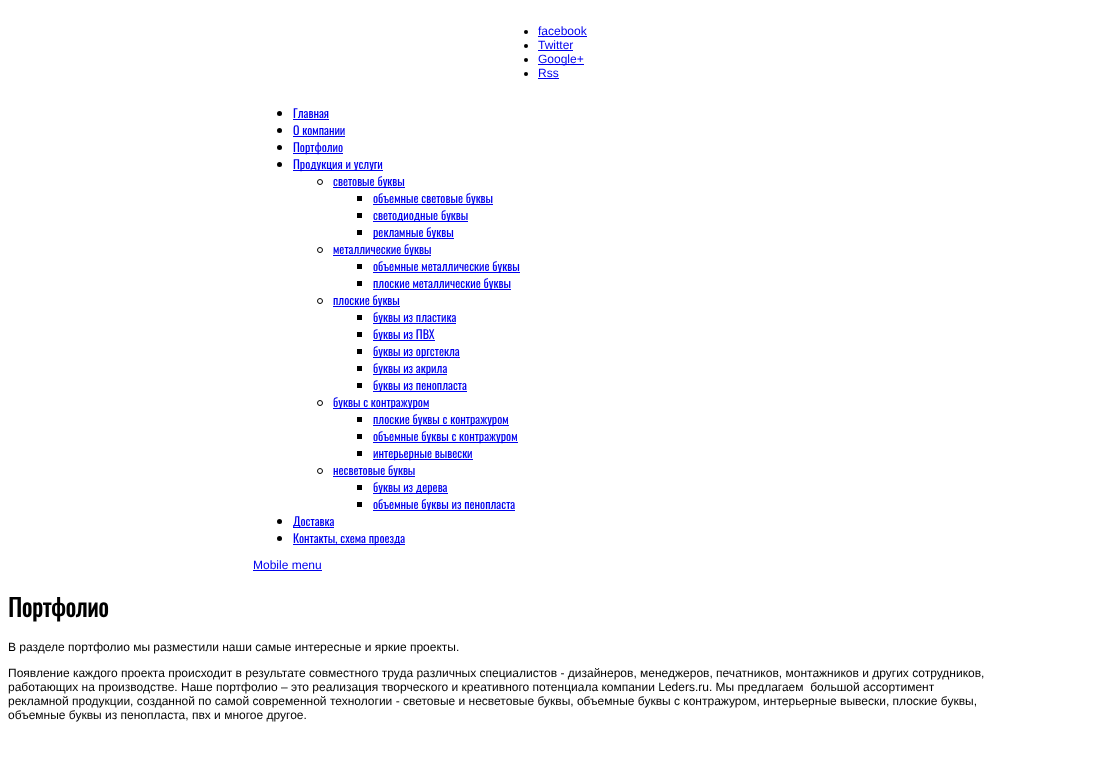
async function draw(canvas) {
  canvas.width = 1103;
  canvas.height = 782;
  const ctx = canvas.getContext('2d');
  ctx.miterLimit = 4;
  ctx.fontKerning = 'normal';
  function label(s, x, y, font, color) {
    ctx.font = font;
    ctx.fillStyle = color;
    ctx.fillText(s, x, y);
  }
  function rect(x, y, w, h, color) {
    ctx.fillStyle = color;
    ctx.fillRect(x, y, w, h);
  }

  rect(0, 0, 1103, 782, '#fff');
  ctx.fillStyle = '#000';
  ctx.beginPath();
  ctx.arc(526, 32, 2, 0, 2 * Math.PI);
  ctx.fill();
  label('facebook', 538, 35, '12px Liberation Sans', '#00e');
  rect(538, 36, 49, 1, '#00e');
  ctx.fillStyle = '#000';
  ctx.beginPath();
  ctx.arc(526, 46, 2, 0, 2 * Math.PI);
  ctx.fill();
  label('Twitter', 538, 49, '12px Liberation Sans', '#00e');
  rect(538, 50, 35, 1, '#00e');
  ctx.fillStyle = '#000';
  ctx.beginPath();
  ctx.arc(526, 60, 2, 0, 2 * Math.PI);
  ctx.fill();
  rect(538, 64, 46, 1, '#00e');
  label('Google+', 538, 63, '12px Liberation Sans', '#00e');
  ctx.fillStyle = '#000';
  ctx.beginPath();
  ctx.arc(526, 74, 2, 0, 2 * Math.PI);
  ctx.fill();
  label('Rss', 538, 77, '12px Liberation Sans', '#00e');
  rect(538, 78, 21, 1, '#00e');
  ctx.fillStyle = '#000';
  ctx.beginPath();
  ctx.arc(279.5, 113.5, 2.5, 0, 2 * Math.PI);
  ctx.fill();
  label('Главная', 293, 118, '12px Oswald', '#00e');
  rect(293, 119, 36, 1, '#00e');
  ctx.fillStyle = '#000';
  ctx.beginPath();
  ctx.arc(279.5, 130.5, 2.5, 0, 2 * Math.PI);
  ctx.fill();
  label('О компании', 293, 135, '12px Oswald', '#00e');
  rect(293, 136, 52, 1, '#00e');
  ctx.fillStyle = '#000';
  ctx.beginPath();
  ctx.arc(279.5, 147.5, 2.5, 0, 2 * Math.PI);
  ctx.fill();
  rect(293, 153, 50, 1, '#00e');
  label('Портфолио', 293, 152, '12px Oswald', '#00e');
  ctx.fillStyle = '#000';
  ctx.beginPath();
  ctx.arc(279.5, 164.5, 2.5, 0, 2 * Math.PI);
  ctx.fill();
  rect(293, 170, 90, 1, '#00e');
  label('Продукция и услуги', 293, 169, '12px Oswald', '#00e');
  ctx.beginPath();
  ctx.arc(320, 182, 2.5, 0, 2 * Math.PI);
  ctx.strokeStyle = '#000';
  ctx.stroke();
  rect(333, 187, 72, 1, '#00e');
  label('световые буквы', 333, 186, '12px Oswald', '#00e');
  rect(357, 196, 5, 5, '#000');
  rect(373, 204, 120, 1, '#00e');
  label('объемные световые буквы', 373, 203, '12px Oswald', '#00e');
  rect(357, 213, 5, 5, '#000');
  rect(373, 221, 95, 1, '#00e');
  label('светодиодные буквы', 373, 220, '12px Oswald', '#00e');
  rect(357, 230, 5, 5, '#000');
  rect(373, 238, 81, 1, '#00e');
  label('рекламные буквы', 373, 237, '12px Oswald', '#00e');
  ctx.beginPath();
  ctx.arc(320, 250, 2.5, 0, 2 * Math.PI);
  ctx.stroke();
  rect(333, 255, 98, 1, '#00e');
  label('металлические буквы', 333, 254, '12px Oswald', '#00e');
  rect(357, 264, 5, 5, '#000');
  rect(373, 272, 147, 1, '#00e');
  label('объемные металлические буквы', 373, 271, '12px Oswald', '#00e');
  rect(357, 281, 5, 5, '#000');
  rect(373, 289, 138, 1, '#00e');
  label('плоские металлические буквы', 373, 288, '12px Oswald', '#00e');
  ctx.beginPath();
  ctx.arc(320, 301, 2.5, 0, 2 * Math.PI);
  ctx.stroke();
  rect(333, 306, 67, 1, '#00e');
  label('плоские буквы', 333, 305, '12px Oswald', '#00e');
  rect(357, 315, 5, 5, '#000');
  rect(373, 323, 83, 1, '#00e');
  label('буквы из пластика', 373, 322, '12px Oswald', '#00e');
  rect(357, 332, 5, 5, '#000');
  rect(373, 340, 62, 1, '#00e');
  label('буквы из ПВХ', 373, 339, '12px Oswald', '#00e');
  rect(357, 349, 5, 5, '#000');
  rect(373, 357, 87, 1, '#00e');
  label('буквы из оргстекла', 373, 356, '12px Oswald', '#00e');
  rect(357, 366, 5, 5, '#000');
  rect(373, 374, 74, 1, '#00e');
  label('буквы из акрила', 373, 373, '12px Oswald', '#00e');
  rect(357, 383, 5, 5, '#000');
  rect(373, 391, 94, 1, '#00e');
  label('буквы из пенопласта', 373, 390, '12px Oswald', '#00e');
  ctx.beginPath();
  ctx.arc(320, 403, 2.5, 0, 2 * Math.PI);
  ctx.stroke();
  rect(333, 408, 96, 1, '#00e');
  label('буквы с контражуром', 333, 407, '12px Oswald', '#00e');
  rect(357, 417, 5, 5, '#000');
  rect(373, 425, 136, 1, '#00e');
  label('плоские буквы с контражуром', 373, 424, '12px Oswald', '#00e');
  rect(357, 434, 5, 5, '#000');
  rect(373, 442, 145, 1, '#00e');
  label('объемные буквы с контражуром', 373, 441, '12px Oswald', '#00e');
  rect(357, 451, 5, 5, '#000');
  rect(373, 459, 100, 1, '#00e');
  label('интерьерные вывески', 373, 458, '12px Oswald', '#00e');
  ctx.beginPath();
  ctx.arc(320, 471, 2.5, 0, 2 * Math.PI);
  ctx.stroke();
  rect(333, 476, 82, 1, '#00e');
  label('несветовые буквы', 333, 475, '12px Oswald', '#00e');
  rect(357, 485, 5, 5, '#000');
  rect(373, 493, 75, 1, '#00e');
  label('буквы из дерева', 373, 492, '12px Oswald', '#00e');
  rect(357, 502, 5, 5, '#000');
  rect(373, 510, 142, 1, '#00e');
  label('объемные буквы из пенопласта', 373, 509, '12px Oswald', '#00e');
  ctx.fillStyle = '#000';
  ctx.beginPath();
  ctx.arc(279.5, 521.5, 2.5, 0, 2 * Math.PI);
  ctx.fill();
  rect(293, 527, 41, 1, '#00e');
  label('Доставка', 293, 526, '12px Oswald', '#00e');
  ctx.fillStyle = '#000';
  ctx.beginPath();
  ctx.arc(279.5, 538.5, 2.5, 0, 2 * Math.PI);
  ctx.fill();
  rect(293, 544, 112, 1, '#00e');
  label('Контакты, схема проезда', 293, 543, '12px Oswald', '#00e');
  label('Mobile menu', 253, 569, '12px Liberation Sans', '#00e');
  rect(253, 570, 69, 1, '#00e');
  label('Портфолио', 8, 617, 'bold 24px Oswald', '#000');
  label('В разделе портфолио мы разместили наши самые интересные и яркие проекты.', 8, 651, '12px Liberation Sans', '#000');
  label('Появление каждого проекта происходит в результате совместного труда различных специалистов - дизайнеров, менеджеров, печатников, монтажников и других сотрудников,', 8, 677, '12px Liberation Sans', '#000');
  label('работающих на производстве. Наше портфолио – это реализация творческого и креативного потенциала компании Leders.ru. Мы предлагаем  большой ассортимент', 8, 691, '12px Liberation Sans', '#000');
  label('рекламной продукции, созданной по самой современной технологии - световые и несветовые буквы, объемные буквы с контражуром, интерьерные вывески, плоские буквы,', 8, 705, '12px Liberation Sans', '#000');
  label('объемные буквы из пенопласта, пвх и многое другое.', 8, 719, '12px Liberation Sans', '#000');
}

draw(document.querySelector('canvas'));
